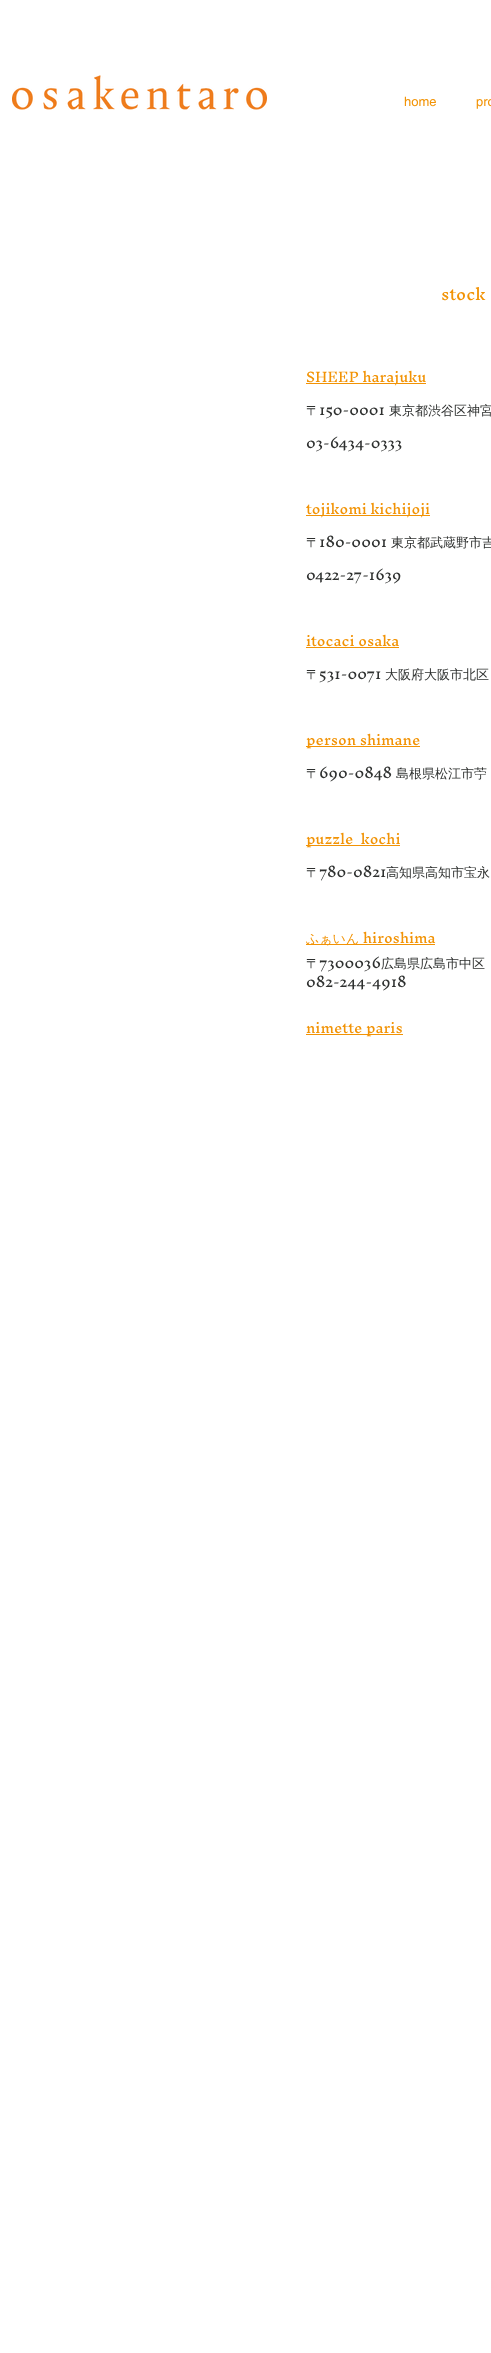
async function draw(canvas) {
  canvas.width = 491;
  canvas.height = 2353;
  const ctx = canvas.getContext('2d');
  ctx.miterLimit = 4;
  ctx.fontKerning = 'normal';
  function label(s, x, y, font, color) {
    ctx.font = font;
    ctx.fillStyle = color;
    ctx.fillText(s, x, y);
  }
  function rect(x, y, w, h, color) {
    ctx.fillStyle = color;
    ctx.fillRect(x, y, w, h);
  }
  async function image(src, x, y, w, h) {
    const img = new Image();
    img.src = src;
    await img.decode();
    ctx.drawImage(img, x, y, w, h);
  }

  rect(0, 0, 491, 2353, '#fff');
  await image('assets/img1.png', 12, 75, 255, 35);
  label('home', 404, 106, '13px helvetica', '#f29305');
  label('pro', 476, 106, '13px helvetica', '#f29305');
  label('stock', 441, 300, '15px Inknut Antiqua', '#f29305');
  rect(306, 383, 120, 1, '#f29305');
  label('SHEEP harajuku', 306, 382, '13px Inknut Antiqua', '#f29305');
  label('〒', 306, 415, '500 13px WenQuanYi Zen Hei', '#2e302f');
  label('150-0001', 319, 415, '13px Inknut Antiqua', '#2e302f');
  label('東京都渋谷区神宮', 389, 415, '500 13px WenQuanYi Zen Hei', '#2e302f');
  label('03-6434-0333', 306, 448, '13px Inknut Antiqua', '#2e302f');
  rect(306, 515, 124, 1, '#f29305');
  label('tojikomi kichijoji', 306, 514, '13px Inknut Antiqua', '#f29305');
  label('〒', 306, 547, '500 13px WenQuanYi Zen Hei', '#2e302f');
  label('180-0001', 319, 547, '13px Inknut Antiqua', '#2e302f');
  label('東京都武蔵野市吉', 391, 547, '500 13px WenQuanYi Zen Hei', '#2e302f');
  label('0422-27-1639', 306, 580, '13px Inknut Antiqua', '#2e302f');
  label('itocaci osaka', 306, 646, '13px Inknut Antiqua', '#f29305');
  rect(306, 647, 93, 1, '#f29305');
  label('〒', 306, 679, '500 13px WenQuanYi Zen Hei', '#2e302f');
  label('531-0071', 319, 679, '13px Inknut Antiqua', '#2e302f');
  label('大阪府大阪市北区', 385, 679, '500 13px WenQuanYi Zen Hei', '#2e302f');
  rect(306, 746, 114, 1, '#f29305');
  label('person shimane', 306, 745, '13px Inknut Antiqua', '#f29305');
  label('〒', 306, 778, '500 13px WenQuanYi Zen Hei', '#2e302f');
  label('690-0848', 319, 778, '13px Inknut Antiqua', '#2e302f');
  label('島根県松江市苧', 396, 778, '500 13px WenQuanYi Zen Hei', '#2e302f');
  rect(306, 845, 94, 1, '#f29305');
  label('puzzle  kochi', 306, 844, '13px Inknut Antiqua', '#f29305');
  label('〒', 306, 877, '500 13px WenQuanYi Zen Hei', '#2e302f');
  label('780-0821', 319, 877, '13px Inknut Antiqua', '#2e302f');
  label('高知県高知市宝永', 386, 877, '500 13px WenQuanYi Zen Hei', '#2e302f');
  rect(306, 944, 129, 1, '#f29305');
  label('ふぁいん', 306, 943, '500 13px WenQuanYi Zen Hei', '#f29305');
  label('hiroshima', 363, 943, '13px Inknut Antiqua', '#f29305');
  label('〒', 306, 968, '500 13px WenQuanYi Zen Hei', '#2e302f');
  label('7300036', 319, 968, '13px Inknut Antiqua', '#2e302f');
  label('広島県広島市中区', 381, 968, '500 13px WenQuanYi Zen Hei', '#2e302f');
  label('082-244-4918', 306, 987, '13px Inknut Antiqua', '#2e302f');
  rect(306, 1034, 97, 1, '#f29305');
  label('nimette paris', 306, 1033, '13px Inknut Antiqua', '#f29305');
}

draw(document.querySelector('canvas'));
